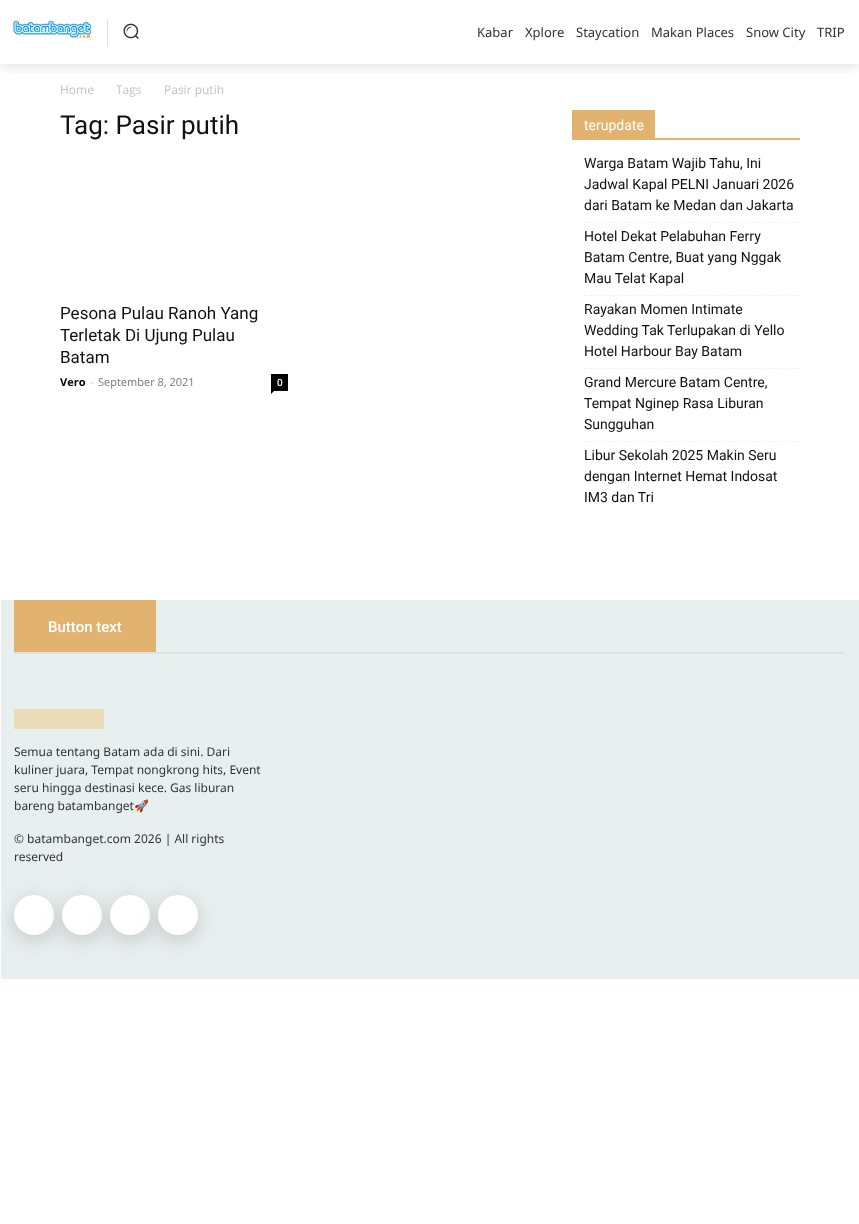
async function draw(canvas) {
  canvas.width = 859;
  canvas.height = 1224;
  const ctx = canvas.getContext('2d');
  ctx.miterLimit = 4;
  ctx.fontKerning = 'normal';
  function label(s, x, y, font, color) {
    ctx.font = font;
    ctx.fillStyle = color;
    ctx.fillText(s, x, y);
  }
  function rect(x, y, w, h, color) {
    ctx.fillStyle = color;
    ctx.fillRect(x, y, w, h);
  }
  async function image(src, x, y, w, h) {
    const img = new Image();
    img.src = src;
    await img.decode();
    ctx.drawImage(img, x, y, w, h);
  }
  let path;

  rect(0, 0, 859, 1224, '#fff');
  ctx.save();
  ctx.beginPath();
  ctx.rect(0, 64, 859, 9);
  ctx.clip();
  ctx.fillStyle = '#00000029';
  ctx.filter = 'blur(8px)';
  ctx.beginPath();
  ctx.rect(0, 0, 859, 64);
  ctx.fill();
  ctx.filter = 'none';
  ctx.restore();
  await image('assets/img1.png', 13, 20, 79, 19);
  rect(107, 19, 1, 27, '#e0e0e0');
  await image('assets/img2.png', 123, 23, 16, 16);
  label('Kabar', 477, 37, '13px Noto Sans', '#333');
  label('Xplore', 525, 37, '13px Noto Sans', '#333');
  label('Staycation', 576, 37, '13px Noto Sans', '#333');
  label('Makan Places', 651, 37, '13px Noto Sans', '#333');
  label('Snow City', 746, 37, '13px Noto Sans', '#333');
  label('TRIP', 817, 37, '13px Noto Sans', '#333');
  label('Home', 60, 94, '12px Open Sans', '#c3c3c3');
  label('Tags', 116, 94, '12px Open Sans', '#c3c3c3');
  label('Pasir putih', 164, 94, '12px Open Sans', '#c3c3c3');
  label('Tag: Pasir putih', 60, 134, '26px Roboto', '#111');
  label('Pesona Pulau Ranoh Yang', 60, 319, '17px Roboto', '#111');
  label('Terletak Di Ujung Pulau', 60, 341, '17px Roboto', '#111');
  label('Batam', 60, 363, '17px Roboto', '#111');
  label('Vero', 60, 386, 'bold 11px Open Sans', '#000');
  label('-', 90, 386, '11px Open Sans', '#ccc');
  label('September 8, 2021', 98, 386, '11px Open Sans', '#767676');
  rect(271, 374, 17, 17, '#000');
  label('0', 277, 386, '600 10px Open Sans', '#fff');
  ctx.fillStyle = '#000';
  path = new Path2D('M271 391H274L271 394Z');
  ctx.fill(path);
  rect(572, 138, 228, 2, '#e2b26f');
  rect(572, 110, 83, 28, '#e2b26f');
  label('terupdate', 584, 130, '14px Roboto', '#fff');
  path = new Path2D('M584 222.5H800');
  ctx.strokeStyle = '#f1f1f1';
  ctx.setLineDash([3, 1.95]);
  ctx.stroke(path);
  label('Warga Batam Wajib Tahu, Ini', 584, 168, '14px Roboto', '#111');
  label('Jadwal Kapal PELNI Januari 2026', 584, 189, '14px Roboto', '#111');
  label('dari Batam ke Medan dan Jakarta', 584, 210, '14px Roboto', '#111');
  path = new Path2D('M584 295.5H800');
  ctx.stroke(path);
  label('Hotel Dekat Pelabuhan Ferry', 584, 241, '14px Roboto', '#111');
  label('Batam Centre, Buat yang Nggak', 584, 262, '14px Roboto', '#111');
  label('Mau Telat Kapal', 584, 283, '14px Roboto', '#111');
  path = new Path2D('M584 368.5H800');
  ctx.stroke(path);
  label('Rayakan Momen Intimate', 584, 314, '14px Roboto', '#111');
  label('Wedding Tak Terlupakan di Yello', 584, 335, '14px Roboto', '#111');
  label('Hotel Harbour Bay Batam', 584, 356, '14px Roboto', '#111');
  path = new Path2D('M584 441.5H800');
  ctx.stroke(path);
  label('Grand Mercure Batam Centre,', 584, 387, '14px Roboto', '#111');
  label('Tempat Nginep Rasa Liburan', 584, 408, '14px Roboto', '#111');
  label('Sungguhan', 584, 429, '14px Roboto', '#111');
  label('Libur Sekolah 2025 Makin Seru', 584, 460, '14px Roboto', '#111');
  label('dengan Internet Hemat Indosat', 584, 481, '14px Roboto', '#111');
  label('IM3 dan Tri', 584, 502, '14px Roboto', '#111');
  rect(1, 600, 858, 379, '#e8efef');
  rect(14, 600, 142, 52, '#e2b26f');
  label('Button text', 48, 632, '500 15px Roboto', '#fff');
  rect(14, 652, 831, 2, '#dce2e5');
  rect(14, 709, 90, 20, '#ecdbb9');
  label('Semua tentang Batam ada di sini. Dari', 14, 756, '12px Noto Sans', '#333');
  label('kuliner juara, Tempat nongkrong hits, Event', 14, 774, '12px Noto Sans', '#333');
  label('seru hingga destinasi kece. Gas liburan', 14, 792, '12px Noto Sans', '#333');
  label('bareng batambanget', 14, 810, '12px Noto Sans', '#333');
  label('🚀', 134, 810, '12px Noto Color Emoji', '#333');
  label('© batambanget.com 2026 | All rights', 14, 843, '12px Noto Sans', '#333');
  label('reserved', 14, 861, '12px Noto Sans', '#333');
  ctx.fillStyle = '#00000029';
  ctx.filter = 'blur(10px)';
  ctx.beginPath();
  ctx.roundRect(14, 900, 40, 40, 20);
  ctx.fill();
  ctx.filter = 'none';
  ctx.fillStyle = '#fff';
  ctx.beginPath();
  ctx.arc(34, 915, 20, 0, 2 * Math.PI);
  ctx.fill();
  ctx.fillStyle = '#00000029';
  ctx.filter = 'blur(10px)';
  ctx.beginPath();
  ctx.roundRect(62, 900, 40, 40, 20);
  ctx.fill();
  ctx.filter = 'none';
  ctx.fillStyle = '#fff';
  ctx.beginPath();
  ctx.arc(82, 915, 20, 0, 2 * Math.PI);
  ctx.fill();
  ctx.fillStyle = '#00000029';
  ctx.filter = 'blur(10px)';
  ctx.beginPath();
  ctx.roundRect(110, 900, 40, 40, 20);
  ctx.fill();
  ctx.filter = 'none';
  ctx.fillStyle = '#fff';
  ctx.beginPath();
  ctx.arc(130, 915, 20, 0, 2 * Math.PI);
  ctx.fill();
  ctx.fillStyle = '#00000029';
  ctx.filter = 'blur(10px)';
  ctx.beginPath();
  ctx.roundRect(158, 900, 40, 40, 20);
  ctx.fill();
  ctx.filter = 'none';
  ctx.fillStyle = '#fff';
  ctx.beginPath();
  ctx.arc(178, 915, 20, 0, 2 * Math.PI);
  ctx.fill();
}

draw(document.querySelector('canvas'));
